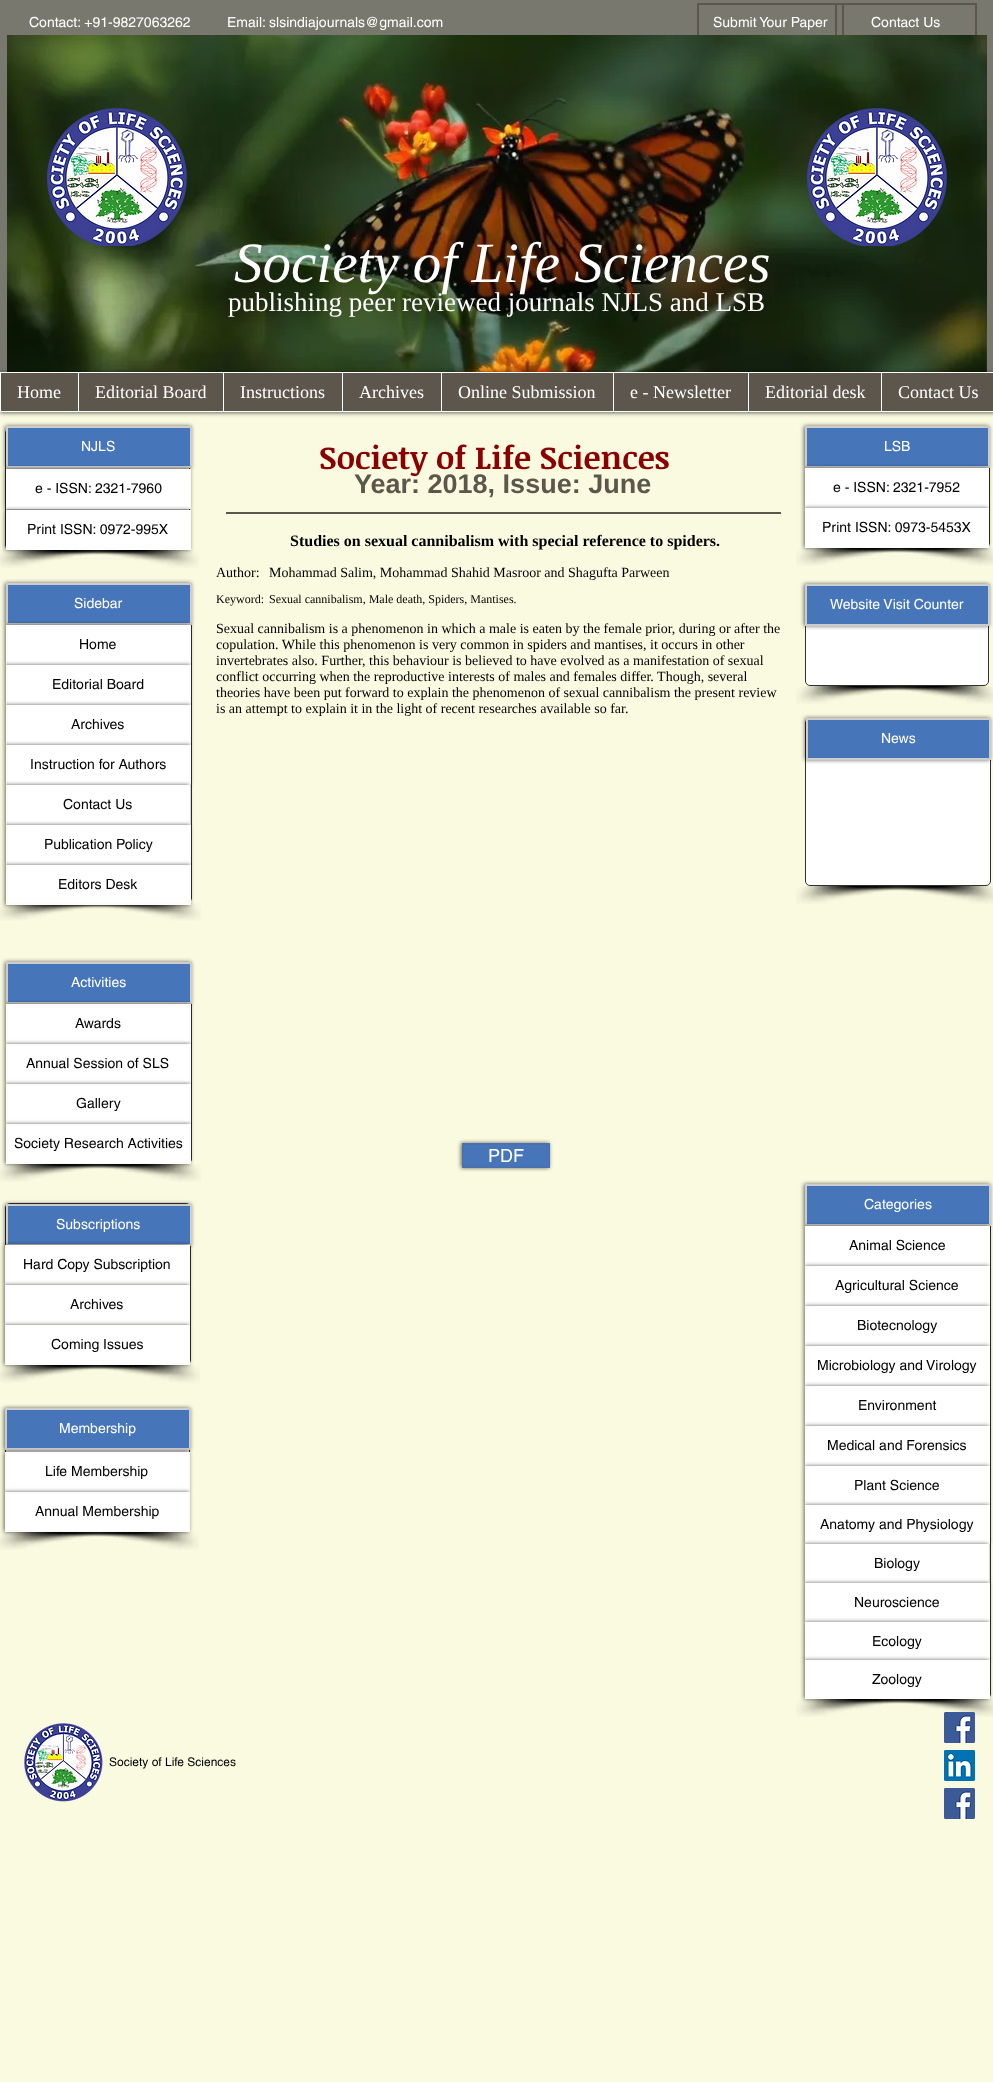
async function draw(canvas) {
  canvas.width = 993;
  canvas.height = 2082;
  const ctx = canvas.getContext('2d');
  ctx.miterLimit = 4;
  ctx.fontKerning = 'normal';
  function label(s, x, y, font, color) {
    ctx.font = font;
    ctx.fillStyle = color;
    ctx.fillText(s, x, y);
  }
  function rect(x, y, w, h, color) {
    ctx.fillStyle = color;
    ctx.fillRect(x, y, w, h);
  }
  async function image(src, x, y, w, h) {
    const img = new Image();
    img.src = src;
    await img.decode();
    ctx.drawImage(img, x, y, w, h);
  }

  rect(0, 0, 993, 2082, '#fafae1');
  rect(0, 0, 993, 372, '#78786f');
  label('Contact: +91-9827063262', 29, 27, '14px helvetica', '#fff');
  label('Email: slsindiajournals@gmail.com', 227, 27, '14px helvetica', '#fff');
  ctx.strokeStyle = '#5d564c';
  ctx.lineWidth = 2;
  ctx.strokeRect(698, 4, 145, 38);
  label('Submit Your Paper', 713, 27, '14px helvetica', '#fff');
  ctx.strokeRect(836, 4, 140, 38);
  label('Contact Us', 871, 27, '14px helvetica', '#fff');
  await image('assets/img1.png', 7, 35, 980, 337);
  await image('assets/img2.png', 806, 108, 141, 138);
  await image('assets/img3.png', 46, 108, 141, 138);
  label('Society of Life Sciences', 234, 282, 'italic 57px Liberation Serif', '#fff');
  ctx.fillStyle = '#00000099';
  ctx.filter = 'blur(2px)';
  ctx.beginPath();
  ctx.rect(0, 373, 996, 40);
  ctx.fill();
  ctx.filter = 'none';
  ctx.fillStyle = '#5d564c';
  ctx.beginPath();
  ctx.rect(0.5, 372.5, 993, 39);
  ctx.fill();
  ctx.strokeStyle = '#fff';
  ctx.lineWidth = 1;
  ctx.stroke();
  label('Home', 17, 398, '18px Liberation Serif', '#fff');
  rect(78, 373, 1, 38, '#fff');
  label('Editorial Board', 95, 398, '18px Liberation Serif', '#fff');
  rect(223, 373, 1, 38, '#fff');
  label('Instructions', 240, 398, '18px Liberation Serif', '#fff');
  rect(342, 373, 1, 38, '#fff');
  label('Archives', 359, 398, '18px Liberation Serif', '#fff');
  rect(441, 373, 1, 38, '#fff');
  label('Online Submission', 458, 398, '18px Liberation Serif', '#fff');
  rect(613, 373, 1, 38, '#fff');
  label('e - Newsletter', 630, 398, '18px Liberation Serif', '#fff');
  rect(748, 373, 1, 38, '#fff');
  label('Editorial desk', 765, 398, '18px Liberation Serif', '#fff');
  rect(881, 373, 1, 38, '#fff');
  label('Contact Us', 898, 398, '18px Liberation Serif', '#fff');
  label('publishing peer reviewed journals NJLS and LSB', 228, 311, '27px Liberation Serif', '#fff');
  ctx.beginPath();
  ctx.roundRect(5.5, 428.5, 184, 121, 4.5);
  ctx.fill();
  ctx.strokeStyle = '#303030';
  ctx.stroke();
  ctx.fillStyle = '#00000099';
  ctx.filter = 'blur(2px)';
  ctx.beginPath();
  ctx.rect(5, 426, 186, 42);
  ctx.fill();
  ctx.filter = 'none';
  ctx.fillStyle = '#4775ba';
  ctx.beginPath();
  ctx.rect(7, 427, 184, 40);
  ctx.fill();
  ctx.strokeStyle = '#ccc';
  ctx.lineWidth = 2;
  ctx.stroke();
  label('NJLS', 81, 451, '14px helvetica', '#fff');
  ctx.fillStyle = '#00000099';
  ctx.filter = 'blur(2px)';
  ctx.beginPath();
  ctx.rect(5, 469, 185, 40);
  ctx.fill();
  ctx.filter = 'none';
  rect(6, 469, 185, 40, '#fff');
  label('e - ISSN: 2321-7960', 35, 493, '14px helvetica', '#000');
  await image('assets/img4.png', 0, 550, 150, 18);
  await image('assets/img5.png', 72, 550, 127, 18);
  ctx.fillStyle = '#00000099';
  ctx.filter = 'blur(2px)';
  ctx.beginPath();
  ctx.rect(5, 510, 185, 40);
  ctx.fill();
  ctx.filter = 'none';
  rect(6, 510, 185, 40, '#fff');
  label('Print ISSN: 0972-995X', 27, 534, '14px helvetica', '#000');
  label('Society of Life Sciences', 319, 469, 'bold 32px Noticia Text', '#8b0000');
  ctx.beginPath();
  ctx.roundRect(805.5, 426.5, 184, 121, 4.5);
  ctx.strokeStyle = '#303030';
  ctx.lineWidth = 1;
  ctx.stroke();
  ctx.fillStyle = '#00000099';
  ctx.filter = 'blur(2px)';
  ctx.beginPath();
  ctx.rect(804, 426, 185, 42);
  ctx.fill();
  ctx.filter = 'none';
  ctx.fillStyle = '#4775ba';
  ctx.beginPath();
  ctx.rect(806, 427, 183, 40);
  ctx.fill();
  ctx.strokeStyle = '#ccc';
  ctx.lineWidth = 2;
  ctx.stroke();
  label('LSB', 884, 451, '14px helvetica', '#fff');
  ctx.fillStyle = '#00000099';
  ctx.filter = 'blur(2px)';
  ctx.beginPath();
  ctx.rect(804, 468, 184, 40);
  ctx.fill();
  ctx.filter = 'none';
  rect(805, 468, 184, 40, '#fff');
  label('e - ISSN: 2321-7952', 833, 492, '14px helvetica', '#000');
  await image('assets/img6.png', 796, 548, 154, 18);
  await image('assets/img7.png', 872, 548, 121, 18);
  ctx.fillStyle = '#00000099';
  ctx.filter = 'blur(2px)';
  ctx.beginPath();
  ctx.rect(804, 508, 184, 40);
  ctx.fill();
  ctx.filter = 'none';
  rect(805, 508, 184, 40, '#fff');
  label('Print ISSN: 0973-5453X', 822, 532, '14px helvetica', '#000');
  rect(226, 512, 555, 2, '#5d564c');
  ctx.fillStyle = '#fff';
  ctx.beginPath();
  ctx.roundRect(6.5, 583.5, 185, 319, 4.5);
  ctx.fill();
  ctx.strokeStyle = '#303030';
  ctx.lineWidth = 1;
  ctx.stroke();
  ctx.fillStyle = '#00000099';
  ctx.filter = 'blur(2px)';
  ctx.beginPath();
  ctx.rect(5, 583, 186, 42);
  ctx.fill();
  ctx.filter = 'none';
  ctx.fillStyle = '#4775ba';
  ctx.beginPath();
  ctx.rect(7, 584, 184, 40);
  ctx.fill();
  ctx.strokeStyle = '#ccc';
  ctx.lineWidth = 2;
  ctx.stroke();
  label('Sidebar', 74, 608, '14px helvetica', '#fff');
  ctx.fillStyle = '#00000099';
  ctx.filter = 'blur(2px)';
  ctx.beginPath();
  ctx.rect(5, 625, 185, 40);
  ctx.fill();
  ctx.filter = 'none';
  ctx.fillStyle = '#fff';
  ctx.beginPath();
  ctx.rect(7, 626, 183, 38);
  ctx.fill();
  ctx.strokeStyle = '#fcfcfb';
  ctx.stroke();
  label('Home', 79, 649, '14px helvetica', '#000');
  ctx.fillStyle = '#00000099';
  ctx.filter = 'blur(2px)';
  ctx.beginPath();
  ctx.rect(5, 665, 185, 40);
  ctx.fill();
  ctx.filter = 'none';
  ctx.fillStyle = '#fff';
  ctx.beginPath();
  ctx.rect(7, 666, 183, 38);
  ctx.fill();
  ctx.stroke();
  label('Editorial Board', 52, 689, '14px helvetica', '#000');
  ctx.fillStyle = '#00000099';
  ctx.filter = 'blur(2px)';
  ctx.beginPath();
  ctx.rect(5, 705, 185, 40);
  ctx.fill();
  ctx.filter = 'none';
  ctx.fillStyle = '#fff';
  ctx.beginPath();
  ctx.rect(7, 706, 183, 38);
  ctx.fill();
  ctx.stroke();
  label('Archives', 71, 729, '14px helvetica', '#000');
  ctx.fillStyle = '#00000099';
  ctx.filter = 'blur(2px)';
  ctx.beginPath();
  ctx.rect(5, 745, 185, 40);
  ctx.fill();
  ctx.filter = 'none';
  ctx.fillStyle = '#fff';
  ctx.beginPath();
  ctx.rect(7, 746, 183, 38);
  ctx.fill();
  ctx.stroke();
  label('Instruction for Authors', 30, 769, '14px helvetica', '#000');
  ctx.fillStyle = '#00000099';
  ctx.filter = 'blur(2px)';
  ctx.beginPath();
  ctx.rect(5, 785, 184, 40);
  ctx.fill();
  ctx.filter = 'none';
  ctx.fillStyle = '#fff';
  ctx.beginPath();
  ctx.rect(7, 786, 182, 38);
  ctx.fill();
  ctx.stroke();
  label('Contact Us', 63, 809, '14px helvetica', '#000');
  ctx.fillStyle = '#00000099';
  ctx.filter = 'blur(2px)';
  ctx.beginPath();
  ctx.rect(5, 825, 185, 40);
  ctx.fill();
  ctx.filter = 'none';
  ctx.fillStyle = '#fff';
  ctx.beginPath();
  ctx.rect(7, 826, 183, 38);
  ctx.fill();
  ctx.stroke();
  label('Publication Policy', 44, 849, '14px helvetica', '#000');
  await image('assets/img8.png', 0, 903, 133, 18);
  await image('assets/img9.png', 74, 903, 127, 18);
  ctx.fillStyle = '#00000099';
  ctx.filter = 'blur(2px)';
  ctx.beginPath();
  ctx.rect(5, 865, 185, 40);
  ctx.fill();
  ctx.filter = 'none';
  ctx.fillStyle = '#fff';
  ctx.beginPath();
  ctx.rect(7, 866, 183, 38);
  ctx.fill();
  ctx.stroke();
  label('Editors Desk', 58, 889, '14px helvetica', '#000');
  ctx.fillStyle = '#fff';
  ctx.beginPath();
  ctx.roundRect(805.5, 584.5, 183, 101, 4.5);
  ctx.fill();
  ctx.strokeStyle = '#303030';
  ctx.lineWidth = 1;
  ctx.stroke();
  ctx.fillStyle = '#00000099';
  ctx.filter = 'blur(2px)';
  ctx.beginPath();
  ctx.rect(804, 584, 185, 42);
  ctx.fill();
  ctx.filter = 'none';
  ctx.fillStyle = '#4775ba';
  ctx.beginPath();
  ctx.rect(806, 585, 183, 40);
  ctx.fill();
  ctx.strokeStyle = '#ccc';
  ctx.lineWidth = 2;
  ctx.stroke();
  label('Website Visit Counter', 830, 609, '14px helvetica', '#fff');
  await image('assets/img6.png', 796, 686, 154, 18);
  await image('assets/img10.png', 871, 686, 122, 18);
  ctx.beginPath();
  ctx.roundRect(805.5, 718.5, 185, 167, 4.5);
  ctx.fill();
  ctx.strokeStyle = '#303030';
  ctx.lineWidth = 1;
  ctx.stroke();
  ctx.fillStyle = '#00000099';
  ctx.filter = 'blur(2px)';
  ctx.beginPath();
  ctx.rect(805, 718, 185, 42);
  ctx.fill();
  ctx.filter = 'none';
  ctx.fillStyle = '#4775ba';
  ctx.beginPath();
  ctx.rect(807, 719, 183, 40);
  ctx.fill();
  ctx.strokeStyle = '#ccc';
  ctx.lineWidth = 2;
  ctx.stroke();
  label('News', 881, 743, '14px helvetica', '#fff');
  await image('assets/img6.png', 796, 886, 154, 18);
  await image('assets/img11.png', 873, 886, 120, 18);
  ctx.beginPath();
  ctx.roundRect(6.5, 965.5, 185, 198, 4.5);
  ctx.strokeStyle = '#303030';
  ctx.lineWidth = 1;
  ctx.stroke();
  ctx.fillStyle = '#00000099';
  ctx.filter = 'blur(2px)';
  ctx.beginPath();
  ctx.rect(5, 962, 186, 42);
  ctx.fill();
  ctx.filter = 'none';
  ctx.fillStyle = '#4775ba';
  ctx.beginPath();
  ctx.rect(7, 963, 184, 40);
  ctx.fill();
  ctx.strokeStyle = '#ccc';
  ctx.lineWidth = 2;
  ctx.stroke();
  label('Activities', 71, 987, '14px helvetica', '#fff');
  ctx.fillStyle = '#00000099';
  ctx.filter = 'blur(2px)';
  ctx.beginPath();
  ctx.rect(5, 1004, 185, 40);
  ctx.fill();
  ctx.filter = 'none';
  ctx.fillStyle = '#fff';
  ctx.beginPath();
  ctx.rect(7, 1005, 183, 38);
  ctx.fill();
  ctx.strokeStyle = '#fcfcfb';
  ctx.stroke();
  label('Awards', 75, 1028, '14px helvetica', '#000');
  ctx.fillStyle = '#00000099';
  ctx.filter = 'blur(2px)';
  ctx.beginPath();
  ctx.rect(5, 1044, 185, 40);
  ctx.fill();
  ctx.filter = 'none';
  ctx.fillStyle = '#fff';
  ctx.beginPath();
  ctx.rect(7, 1045, 183, 38);
  ctx.fill();
  ctx.stroke();
  label('Annual Session of SLS', 26, 1068, '14px helvetica', '#000');
  ctx.fillStyle = '#00000099';
  ctx.filter = 'blur(2px)';
  ctx.beginPath();
  ctx.rect(5, 1084, 185, 40);
  ctx.fill();
  ctx.filter = 'none';
  ctx.fillStyle = '#fff';
  ctx.beginPath();
  ctx.rect(7, 1085, 183, 38);
  ctx.fill();
  ctx.stroke();
  label('Gallery', 76, 1108, '14px helvetica', '#000');
  await image('assets/img12.png', 0, 1164, 151, 18);
  await image('assets/img9.png', 74, 1164, 127, 18);
  ctx.fillStyle = '#00000099';
  ctx.filter = 'blur(2px)';
  ctx.beginPath();
  ctx.rect(5, 1124, 185, 40);
  ctx.fill();
  ctx.filter = 'none';
  ctx.fillStyle = '#fff';
  ctx.beginPath();
  ctx.rect(7, 1125, 183, 38);
  ctx.fill();
  ctx.stroke();
  label('Society Research Activities', 14, 1148, '14px helvetica', '#000');
  ctx.beginPath();
  ctx.roundRect(5.5, 1203.5, 185, 161, 4.5);
  ctx.strokeStyle = '#303030';
  ctx.lineWidth = 1;
  ctx.stroke();
  ctx.fillStyle = '#00000099';
  ctx.filter = 'blur(2px)';
  ctx.beginPath();
  ctx.rect(5, 1204, 186, 42);
  ctx.fill();
  ctx.filter = 'none';
  ctx.fillStyle = '#4775ba';
  ctx.beginPath();
  ctx.rect(7, 1205, 184, 40);
  ctx.fill();
  ctx.strokeStyle = '#ccc';
  ctx.lineWidth = 2;
  ctx.stroke();
  label('Subscriptions', 56, 1229, '14px helvetica', '#fff');
  ctx.fillStyle = '#00000099';
  ctx.filter = 'blur(2px)';
  ctx.beginPath();
  ctx.rect(4, 1245, 185, 40);
  ctx.fill();
  ctx.filter = 'none';
  ctx.fillStyle = '#fff';
  ctx.beginPath();
  ctx.rect(6, 1246, 183, 38);
  ctx.fill();
  ctx.strokeStyle = '#fcfcfb';
  ctx.stroke();
  label('Hard Copy Subscription', 23, 1269, '14px helvetica', '#000');
  ctx.fillStyle = '#00000099';
  ctx.filter = 'blur(2px)';
  ctx.beginPath();
  ctx.rect(4, 1285, 185, 40);
  ctx.fill();
  ctx.filter = 'none';
  ctx.fillStyle = '#fff';
  ctx.beginPath();
  ctx.rect(6, 1286, 183, 38);
  ctx.fill();
  ctx.stroke();
  label('Archives', 70, 1309, '14px helvetica', '#000');
  await image('assets/img4.png', 0, 1365, 150, 18);
  await image('assets/img9.png', 73, 1365, 127, 18);
  ctx.fillStyle = '#00000099';
  ctx.filter = 'blur(2px)';
  ctx.beginPath();
  ctx.rect(4, 1325, 185, 40);
  ctx.fill();
  ctx.filter = 'none';
  ctx.fillStyle = '#fff';
  ctx.beginPath();
  ctx.rect(6, 1326, 183, 38);
  ctx.fill();
  ctx.stroke();
  label('Coming Issues', 51, 1349, '14px helvetica', '#000');
  ctx.fillStyle = '#fff';
  ctx.beginPath();
  ctx.roundRect(805.5, 1184.5, 185, 514, 4.5);
  ctx.fill();
  ctx.strokeStyle = '#303030';
  ctx.lineWidth = 1;
  ctx.stroke();
  ctx.fillStyle = '#00000099';
  ctx.filter = 'blur(2px)';
  ctx.beginPath();
  ctx.rect(804, 1184, 186, 42);
  ctx.fill();
  ctx.filter = 'none';
  ctx.fillStyle = '#4775ba';
  ctx.beginPath();
  ctx.rect(806, 1185, 184, 40);
  ctx.fill();
  ctx.strokeStyle = '#ccc';
  ctx.lineWidth = 2;
  ctx.stroke();
  label('Categories', 864, 1209, '14px helvetica', '#fff');
  ctx.fillStyle = '#00000099';
  ctx.filter = 'blur(2px)';
  ctx.beginPath();
  ctx.rect(804, 1226, 185, 40);
  ctx.fill();
  ctx.filter = 'none';
  rect(805, 1226, 185, 40, '#fff');
  label('Animal Science', 849, 1250, '14px helvetica', '#000');
  ctx.fillStyle = '#00000099';
  ctx.filter = 'blur(2px)';
  ctx.beginPath();
  ctx.rect(804, 1266, 185, 40);
  ctx.fill();
  ctx.filter = 'none';
  rect(805, 1266, 185, 40, '#fff');
  label('Agricultural Science', 835, 1290, '14px helvetica', '#000');
  ctx.fillStyle = '#00000099';
  ctx.filter = 'blur(2px)';
  ctx.beginPath();
  ctx.rect(804, 1306, 185, 40);
  ctx.fill();
  ctx.filter = 'none';
  rect(805, 1306, 185, 40, '#fff');
  label('Biotecnology', 857, 1330, '14px helvetica', '#000');
  ctx.fillStyle = '#00000099';
  ctx.filter = 'blur(2px)';
  ctx.beginPath();
  ctx.rect(804, 1346, 185, 40);
  ctx.fill();
  ctx.filter = 'none';
  rect(805, 1346, 185, 40, '#fff');
  label('Microbiology and Virology', 817, 1370, '14px helvetica', '#000');
  ctx.fillStyle = '#00000099';
  ctx.filter = 'blur(2px)';
  ctx.beginPath();
  ctx.rect(804, 1386, 185, 40);
  ctx.fill();
  ctx.filter = 'none';
  rect(805, 1386, 185, 40, '#fff');
  label('Environment', 858, 1410, '14px helvetica', '#000');
  ctx.fillStyle = '#00000099';
  ctx.filter = 'blur(2px)';
  ctx.beginPath();
  ctx.rect(804, 1426, 185, 40);
  ctx.fill();
  ctx.filter = 'none';
  rect(805, 1426, 185, 40, '#fff');
  label('Medical and Forensics', 827, 1450, '14px helvetica', '#000');
  ctx.fillStyle = '#00000099';
  ctx.filter = 'blur(2px)';
  ctx.beginPath();
  ctx.rect(804, 1466, 185, 39);
  ctx.fill();
  ctx.filter = 'none';
  rect(805, 1466, 185, 39, '#fff');
  label('Plant Science', 854, 1490, '14px helvetica', '#000');
  ctx.fillStyle = '#00000099';
  ctx.filter = 'blur(2px)';
  ctx.beginPath();
  ctx.rect(804, 1505, 185, 39);
  ctx.fill();
  ctx.filter = 'none';
  rect(805, 1505, 185, 39, '#fff');
  label('Anatomy and Physiology', 820, 1529, '14px helvetica', '#000');
  ctx.fillStyle = '#00000099';
  ctx.filter = 'blur(2px)';
  ctx.beginPath();
  ctx.rect(804, 1544, 184, 39);
  ctx.fill();
  ctx.filter = 'none';
  rect(805, 1544, 184, 39, '#fff');
  label('Biology', 874, 1568, '14px helvetica', '#000');
  ctx.fillStyle = '#00000099';
  ctx.filter = 'blur(2px)';
  ctx.beginPath();
  ctx.rect(804, 1583, 185, 39);
  ctx.fill();
  ctx.filter = 'none';
  rect(805, 1583, 185, 39, '#fff');
  label('Neuroscience', 854, 1607, '14px helvetica', '#000');
  ctx.fillStyle = '#00000099';
  ctx.filter = 'blur(2px)';
  ctx.beginPath();
  ctx.rect(804, 1622, 185, 39);
  ctx.fill();
  ctx.filter = 'none';
  rect(805, 1622, 185, 38, '#fff');
  label('Ecology', 872, 1646, '14px helvetica', '#000');
  await image('assets/img6.png', 796, 1699, 154, 18);
  await image('assets/img11.png', 873, 1699, 120, 18);
  ctx.fillStyle = '#00000099';
  ctx.filter = 'blur(2px)';
  ctx.beginPath();
  ctx.rect(804, 1660, 185, 39);
  ctx.fill();
  ctx.filter = 'none';
  rect(805, 1660, 185, 39, '#fff');
  label('Zoology', 872, 1684, '14px helvetica', '#000');
  rect(6, 1450, 183, 2, '#fff');
  ctx.strokeStyle = '#303030';
  ctx.lineWidth = 1;
  ctx.strokeRect(5.5, 1408.5, 184, 123);
  ctx.fillStyle = '#00000099';
  ctx.filter = 'blur(2px)';
  ctx.beginPath();
  ctx.rect(4, 1408, 186, 42);
  ctx.fill();
  ctx.filter = 'none';
  ctx.fillStyle = '#4775ba';
  ctx.beginPath();
  ctx.rect(6, 1409, 184, 40);
  ctx.fill();
  ctx.strokeStyle = '#ccc';
  ctx.lineWidth = 2;
  ctx.stroke();
  label('Membership', 59, 1433, '14px helvetica', '#fff');
  ctx.fillStyle = '#00000099';
  ctx.filter = 'blur(2px)';
  ctx.beginPath();
  ctx.rect(4, 1452, 185, 40);
  ctx.fill();
  ctx.filter = 'none';
  ctx.fillStyle = '#fff';
  ctx.beginPath();
  ctx.rect(6, 1453, 183, 38);
  ctx.fill();
  ctx.strokeStyle = '#fcfcfb';
  ctx.stroke();
  label('Life Membership', 45, 1476, '14px helvetica', '#000');
  await image('assets/img4.png', 0, 1532, 150, 18);
  await image('assets/img5.png', 72, 1532, 127, 18);
  ctx.fillStyle = '#00000099';
  ctx.filter = 'blur(2px)';
  ctx.beginPath();
  ctx.rect(4, 1492, 185, 40);
  ctx.fill();
  ctx.filter = 'none';
  ctx.fillStyle = '#fff';
  ctx.beginPath();
  ctx.rect(6, 1493, 183, 38);
  ctx.fill();
  ctx.stroke();
  label('Annual Membership', 35, 1516, '14px helvetica', '#000');
  label('Year: 2018, Issue: June', 354, 493, 'bold 27px Liberation Sans', '#5d564c');
  label('Studies on sexual cannibalism with special reference to spiders.', 290, 546, 'bold 16px Liberation Serif', '#000');
  label('Author:', 216, 577, '14px Liberation Serif', '#000');
  label('Mohammad Salim, Mohammad Shahid Masroor and Shagufta Parween', 269, 577, '14px Liberation Serif', '#000');
  label('Keyword:', 216, 603, '12px Liberation Serif', '#000');
  label('Sexual cannibalism, Male death, Spiders, Mantises.', 269, 603, '12px Liberation Serif', '#000');
  label('Sexual cannibalism is a phenomenon in which a male is eaten by the female prior, during or after the', 216, 633, '14px Liberation Serif', '#000');
  label('copulation. While this phenomenon is very common in spiders and mantises, it occurs in other', 216, 649, '14px Liberation Serif', '#000');
  label('invertebrates also. Further, this behaviour is believed to have evolved as a manifestation of sexual', 216, 665, '14px Liberation Serif', '#000');
  label('conflict occurring when the reproductive interests of males and females differ. Though, several', 216, 681, '14px Liberation Serif', '#000');
  label('theories have been put forward to explain the phenomenon of sexual cannibalism the present review', 216, 697, '14px Liberation Serif', '#000');
  label('is an attempt to explain it in the light of recent researches available so far.', 216, 713, '14px Liberation Serif', '#000');
  ctx.fillStyle = '#00000099';
  ctx.filter = 'blur(2px)';
  ctx.beginPath();
  ctx.rect(461, 1143, 88, 25);
  ctx.fill();
  ctx.filter = 'none';
  ctx.fillStyle = '#4775ba';
  ctx.beginPath();
  ctx.rect(463, 1144, 86, 23);
  ctx.fill();
  ctx.strokeStyle = '#4a71ad';
  ctx.stroke();
  label('PDF', 488, 1162, '18px helvetica', '#fff');
  await image('assets/img13.png', 24, 1723, 79, 79);
  label('Society of Life Sciences', 109, 1766, '12px helvetica', '#000');
  await image('assets/img14.png', 944, 1712, 31, 31);
  await image('assets/img15.png', 944, 1750, 31, 31);
  await image('assets/img16.png', 944, 1788, 31, 31);
}

draw(document.querySelector('canvas'));
